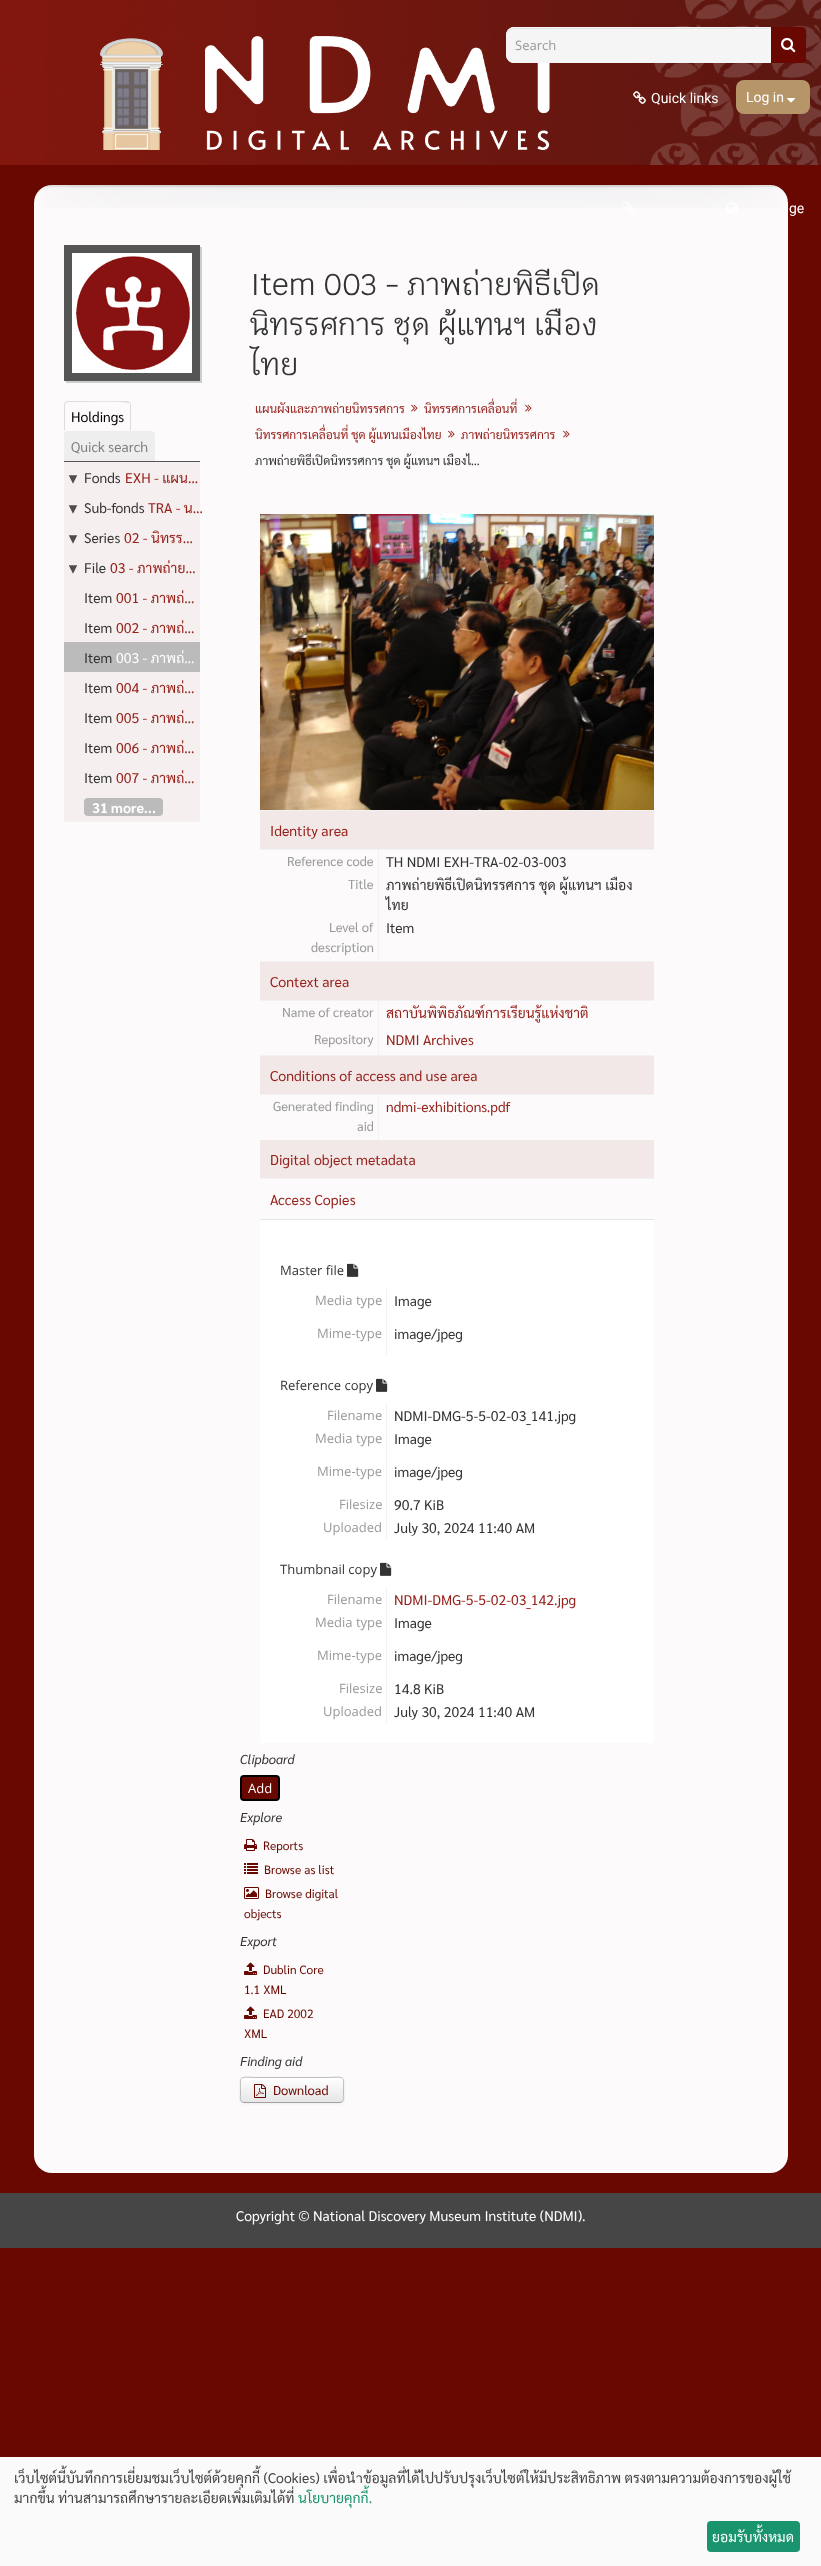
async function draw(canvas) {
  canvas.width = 821;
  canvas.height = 2566;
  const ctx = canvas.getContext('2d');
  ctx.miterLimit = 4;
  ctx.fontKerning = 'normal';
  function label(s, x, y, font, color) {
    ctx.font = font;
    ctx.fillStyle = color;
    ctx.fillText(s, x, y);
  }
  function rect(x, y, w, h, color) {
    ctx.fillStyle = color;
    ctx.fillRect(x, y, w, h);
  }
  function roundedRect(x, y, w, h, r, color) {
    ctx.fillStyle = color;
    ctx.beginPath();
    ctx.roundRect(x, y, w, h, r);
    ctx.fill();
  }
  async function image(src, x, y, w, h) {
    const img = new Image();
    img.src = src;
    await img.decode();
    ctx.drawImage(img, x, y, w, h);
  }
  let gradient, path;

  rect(0, 0, 821, 2566, '#690800');
  await image('assets/img1.png', 0, 0, 821, 165);
  await image('assets/img2.png', 100, 36, 450, 114);
  roundedRect(506, 27, 280, 36, 8, '#f5f5f5');
  ctx.fillStyle = '#e3e3e3';
  path = new Path2D('M514 29H778C782 29 785 32 785 36C785 32 783 28 778 28H513C509 29 507 32 507 36C507 32 510 29 514 29Z');
  ctx.fill(path);
  ctx.beginPath();
  ctx.roundRect(506.5, 27.5, 279, 35, 7.5);
  ctx.strokeStyle = '#f5f5f5';
  ctx.stroke();
  label('Search', 515, 50, '13px Open Sans', '#999');
  ctx.fillStyle = '#690800';
  ctx.beginPath();
  ctx.roundRect(771, 27, 35, 36, [0, 4, 4, 0]);
  ctx.fill();
  await image('assets/img3.png', 781, 37, 15, 16);
  await image('assets/img4.png', 633, 91, 13, 13);
  label('Quick links', 651, 103, '14px Roboto', '#fff');
  roundedRect(736, 80, 74, 34, 8, '#b69568');
  label('Log in', 746, 102, '14px Roboto', '#fff');
  await image('assets/img5.png', 787, 98, 8, 5);
  roundedRect(34, 185, 754, 1988, 18, '#fcfafb');
  await image('assets/img8.png', 41, 185, 740, 23);
  await image('assets/img6.png', 623, 202, 11, 12);
  await image('assets/img7.png', 726, 202, 12, 12);
  label('ge', 789, 213, '14px Roboto', '#fff');
  ctx.fillStyle = '#19191933';
  ctx.filter = 'blur(0.5px)';
  ctx.beginPath();
  ctx.rect(66, 247, 136, 136);
  ctx.fill();
  ctx.filter = 'none';
  rect(64, 245, 136, 136, '#555');
  await image('assets/img9.png', 72, 253, 120, 120);
  rect(64, 461, 136, 1, '#555');
  ctx.fillStyle = '#ddd';
  path = new Path2D('M68 401L65 402L66 403L68 402H78C84 402 127 401 129 403L130 402L127 401Z');
  ctx.fill(path);
  path = new Path2D('M131 431V405C131 404 130.5 403 130 402L129 403C130 403 130 404 130 405V430Z');
  ctx.fill(path);
  path = new Path2D('M64 431L65 430V405C65 404 65 403 66 403L65 402C64.5 403 64 404 64 405Z');
  ctx.fill(path);
  label('Holdings', 71, 422, '14px Sarabun', '#000');
  ctx.fillStyle = '#eee';
  ctx.beginPath();
  ctx.roundRect(64, 431, 91, 30, [4, 4, 0, 0]);
  ctx.fill();
  label('Quick search', 71, 452, '14px Sarabun', '#808080');
  rect(64, 462, 136, 360, '#f6efef');
  await image('assets/img10.png', 69, 475, 9, 9);
  label('Fonds', 84, 483, '14px Sarabun', '#333');
  label('EXH - แผน…', 125, 483, '14px Sarabun', '#96221c');
  await image('assets/img10.png', 69, 505, 9, 9);
  label('Sub-fonds', 84, 513, '14px Sarabun', '#333');
  label('TRA - น…', 148, 513, '14px Sarabun', '#96221c');
  await image('assets/img10.png', 69, 535, 9, 9);
  label('Series', 84, 543, '14px Sarabun', '#333');
  label('02 - นิทรร…', 124, 543, '14px Sarabun', '#96221c');
  await image('assets/img10.png', 69, 565, 9, 9);
  label('File', 84, 573, '14px Sarabun', '#333');
  label('03 - ภาพถ่าย…', 110, 573, '14px Sarabun', '#96221c');
  label('Item', 84, 603, '14px Sarabun', '#333');
  label('001 - ภาพถ่…', 116, 603, '14px Sarabun', '#96221c');
  label('Item', 84, 633, '14px Sarabun', '#333');
  label('002 - ภาพถ่…', 116, 633, '14px Sarabun', '#96221c');
  rect(64, 642, 136, 30, '#bbb');
  label('Item', 84, 663, '14px Sarabun', '#333');
  label('003 - ภาพถ่…', 116, 663, '14px Sarabun', '#fff');
  label('Item', 84, 693, '14px Sarabun', '#333');
  label('004 - ภาพถ่…', 116, 693, '14px Sarabun', '#96221c');
  label('Item', 84, 723, '14px Sarabun', '#333');
  label('005 - ภาพถ่…', 116, 723, '14px Sarabun', '#96221c');
  label('Item', 84, 753, '14px Sarabun', '#333');
  label('006 - ภาพถ่…', 116, 753, '14px Sarabun', '#96221c');
  label('Item', 84, 783, '14px Sarabun', '#333');
  label('007 - ภาพถ่…', 116, 783, '14px Sarabun', '#96221c');
  roundedRect(84, 798, 79, 18, 4, '#bbb');
  label('31 more...', 92, 813, 'bold 14px Sarabun', '#fff');
  label('Item 003 - ภาพถ่ายพิธีเปิด', 250, 295, '30px Krub', '#333');
  label('นิทรรศการ ชุด ผู้แทนฯ เมือง', 250, 335, '30px Krub', '#333');
  label('ไทย', 250, 375, '30px Krub', '#333');
  label('แผนผังและภาพถ่ายนิทรรศการ', 255, 413, '12px Sarabun', '#96221c');
  await image('assets/img11.png', 411, 404, 7, 8);
  ctx.save();
  ctx.beginPath();
  ctx.roundRect(420, 396, 102, 24, 3);
  ctx.clip();
  label('นิทรรศการเคลื่อนที่', 424, 413, '12px Sarabun', '#96221c');
  ctx.restore();
  await image('assets/img11.png', 525, 404, 7, 8);
  ctx.save();
  ctx.beginPath();
  ctx.roundRect(251, 422, 194, 24, 3);
  ctx.clip();
  label('นิทรรศการเคลื่อนที่ ชุด ผู้แทนเมืองไทย', 255, 439, '12px Sarabun', '#96221c');
  ctx.restore();
  await image('assets/img11.png', 448, 430, 7, 8);
  label('ภาพถ่ายนิทรรศการ', 461, 439, '12px Sarabun', '#96221c');
  await image('assets/img11.png', 563, 430, 7, 8);
  label('ภาพถ่ายพิธีเปิดนิทรรศการ ชุด ผู้แทนฯ เมืองไ…', 255, 465, '12px Sarabun', '#333');
  await image('assets/img12.png', 260, 514, 394, 296);
  rect(260, 811, 394, 38, '#f3e8e8');
  rect(260, 810, 394, 1, '#f2f2f2');
  rect(260, 849, 394, 1, '#f2f2f2');
  label('Identity area', 270, 836, '14.25px Sarabun', '#96221c');
  rect(378, 850, 1, 111, '#f2f2f2');
  label('Reference code', 287, 866, '13px Sarabun', '#999');
  label('TH NDMI EXH-TRA-02-03-003', 386, 867, '14px Sarabun', '#333');
  label('Title', 348, 889, '13px Sarabun', '#999');
  label('ภาพถ่ายพิธีเปิดนิทรรศการ ชุด ผู้แทนฯ เมือง', 386, 890, '14px Sarabun', '#333');
  label('ไทย', 386, 910, '14px Sarabun', '#333');
  label('Level of', 329, 932, '13px Sarabun', '#999');
  label('description', 311, 952, '13px Sarabun', '#999');
  label('Item', 386, 933, '14px Sarabun', '#333');
  rect(260, 962, 394, 38, '#f3e8e8');
  rect(260, 961, 394, 1, '#f2f2f2');
  rect(260, 1000, 394, 1, '#f2f2f2');
  label('Context area', 270, 987, '14.25px Sarabun', '#96221c');
  rect(378, 1001, 1, 54, '#f2f2f2');
  label('Name of creator', 282, 1017, '13px Sarabun', '#999');
  label('สถาบันพิพิธภัณฑ์การเรียนรู้แห่งชาติ', 386, 1018, '14px Sarabun', '#96221c');
  label('Repository', 314, 1044, '13px Sarabun', '#999');
  label('NDMI Archives', 386, 1045, '14px Sarabun', '#96221c');
  rect(260, 1056, 394, 38, '#f3e8e8');
  rect(260, 1055, 394, 1, '#f2f2f2');
  rect(260, 1094, 394, 1, '#f2f2f2');
  label('Conditions of access and use area', 270, 1081, '14.25px Sarabun', '#96221c');
  rect(378, 1095, 1, 45, '#f2f2f2');
  label('Generated finding', 273, 1111, '13px Sarabun', '#999');
  label('aid', 357, 1131, '13px Sarabun', '#999');
  label('ndmi-exhibitions.pdf', 386, 1112, '14px Sarabun', '#96221c');
  rect(260, 1140, 394, 38, '#f3e8e8');
  rect(260, 1178, 394, 1, '#f2f2f2');
  label('Digital object metadata', 270, 1165, '14.25px Sarabun', '#96221c');
  rect(260, 1219, 394, 1, '#e5e5e5');
  label('Access Copies', 270, 1205, '14.25px Sarabun', '#96221c');
  rect(260, 1220, 394, 523, '#fff');
  label('Master file', 280, 1275, '13px Open Sans', '#333');
  await image('assets/img13.png', 347, 1263, 12, 14);
  rect(386, 1289, 1, 66, '#f2f2f2');
  label('Media type', 315, 1305, '13px Open Sans', '#999');
  label('Image', 394, 1306, '14px Sarabun', '#333');
  label('Mime-type', 317, 1338, '13px Open Sans', '#999');
  label('image/jpeg', 394, 1339, '14px Sarabun', '#333');
  label('Reference copy', 280, 1390, '13px Open Sans', '#333');
  await image('assets/img13.png', 376, 1378, 12, 14);
  rect(386, 1404, 1, 135, '#f2f2f2');
  label('Filename', 327, 1420, '13px Open Sans', '#999');
  label('NDMI-DMG-5-5-02-03_141.jpg', 394, 1421, '14px Sarabun', '#333');
  label('Media type', 315, 1443, '13px Open Sans', '#999');
  label('Image', 394, 1444, '14px Sarabun', '#333');
  label('Mime-type', 317, 1476, '13px Open Sans', '#999');
  label('image/jpeg', 394, 1477, '14px Sarabun', '#333');
  label('Filesize', 339, 1509, '13px Open Sans', '#999');
  label('90.7 KiB', 394, 1510, '14px Sarabun', '#333');
  label('Uploaded', 323, 1532, '13px Open Sans', '#999');
  label('July 30, 2024 11:40 AM', 394, 1533, '14px Sarabun', '#333');
  label('Thumbnail copy', 280, 1574, '13px Open Sans', '#333');
  await image('assets/img13.png', 380, 1562, 12, 14);
  rect(386, 1588, 1, 135, '#f2f2f2');
  label('Filename', 327, 1604, '13px Open Sans', '#999');
  label('NDMI-DMG-5-5-02-03_142.jpg', 394, 1605, '14px Sarabun', '#96221c');
  label('Media type', 315, 1627, '13px Open Sans', '#999');
  label('Image', 394, 1628, '14px Sarabun', '#333');
  label('Mime-type', 317, 1660, '13px Open Sans', '#999');
  label('image/jpeg', 394, 1661, '14px Sarabun', '#333');
  label('Filesize', 339, 1693, '13px Open Sans', '#999');
  label('14.8 KiB', 394, 1694, '14px Sarabun', '#333');
  label('Uploaded', 323, 1716, '13px Open Sans', '#999');
  label('July 30, 2024 11:40 AM', 394, 1717, '14px Sarabun', '#333');
  label('Clipboard', 240, 1764, 'italic 13px Sarabun', '#333');
  ctx.fillStyle = '#690800';
  ctx.beginPath();
  ctx.roundRect(241, 1776, 38, 24, 3);
  ctx.fill();
  ctx.strokeStyle = '#000';
  ctx.lineWidth = 2;
  ctx.stroke();
  label('Add', 248, 1793, '13px Open Sans', '#fff');
  label('Explore', 240, 1822, 'italic 13px Sarabun', '#333');
  await image('assets/img14.png', 244, 1839, 13, 12);
  label('Reports', 263, 1850, '12px Sarabun', '#690800');
  await image('assets/img15.png', 244, 1863, 14, 11);
  label('Browse as list', 264, 1874, '12px Sarabun', '#690800');
  await image('assets/img16.png', 244, 1887, 15, 12);
  label('Browse digital', 265, 1898, '12px Sarabun', '#690800');
  label('objects', 244, 1918, '12px Sarabun', '#690800');
  label('Export', 240, 1946, 'italic 13px Sarabun', '#333');
  await image('assets/img17.png', 244, 1962, 13, 13);
  label('Dublin Core', 263, 1974, '12px Sarabun', '#690800');
  label('1.1 XML', 244, 1994, '12px Sarabun', '#690800');
  await image('assets/img17.png', 244, 2006, 13, 13);
  label('EAD 2002', 263, 2018, '12px Sarabun', '#690800');
  label('XML', 244, 2038, '12px Sarabun', '#690800');
  label('Finding aid', 240, 2066, 'italic 13px Sarabun', '#333');
  ctx.fillStyle = '#0000000d';
  ctx.filter = 'blur(1px)';
  ctx.beginPath();
  ctx.roundRect(240, 2078, 104, 26, 4);
  ctx.fill();
  ctx.filter = 'none';
  roundedRect(240, 2077, 104, 26, 4, '#f5f5f5');
  ctx.save();
  ctx.beginPath();
  ctx.roundRect(240, 2077, 104, 26, 4);
  ctx.clip();
  gradient = ctx.createLinearGradient(292, 2078, 292, 2102);
  gradient.addColorStop(0, '#fff');
  gradient.addColorStop(1, '#e6e6e6');
  ctx.fillStyle = gradient;
  ctx.fillRect(240, 2078, 104, 24);
  ctx.restore();
  path = new Path2D('M342.5 2101.5L340 2102.5H243.5L241.5 2101.5');
  ctx.strokeStyle = '#a2a2a2';
  ctx.lineWidth = 1;
  ctx.stroke(path);
  path = new Path2D('M241.5 2101.5C239.5 2099.5 240.5 2095.5 240.5 2093C240.5 2073.5 238 2077.5 260 2077.5H324C346 2077.5 343.5 2073.5 343.5 2093C343.5 2095.5 344.5 2099.5 342.5 2101.5');
  ctx.strokeStyle = '#bbb';
  ctx.stroke(path);
  await image('assets/img18.png', 254, 2084, 12, 14);
  label('Download', 273, 2095, '13px Sarabun', '#690800');
  rect(0, 2193, 821, 55, '#464646');
  label('Copyright © National Discovery Museum Institute (NDMI).', 236, 2221, '14px Sarabun', '#fff');
  rect(0, 2457, 821, 109, '#fafafa');
  label('เว็บไซต์นี้บันทึกการเยี่ยมชมเว็บไซต์ด้วยคุกกี้ (Cookies) เพื่อนำข้อมูลที่ได้ไปปรับปรุงเว็บไซต์ให้มีประสิทธิภาพ ตรงตามความต้องการของผู้ใช้', 14, 2483, '14px Sarabun', '#444');
  label('มากขึ้น ท่านสามารถศึกษารายละเอียดเพิ่มเติมได้ที่', 14, 2503, '14px Sarabun', '#444');
  label('นโยบายคุกกี้.', 298, 2503, '14px Sarabun', '#1a936f');
  roundedRect(707, 2521, 93, 31, 4, '#1a936f');
  label('ยอมรับทั้งหมด', 712, 2542, '14px Sarabun', '#fff');
}

draw(document.querySelector('canvas'));
